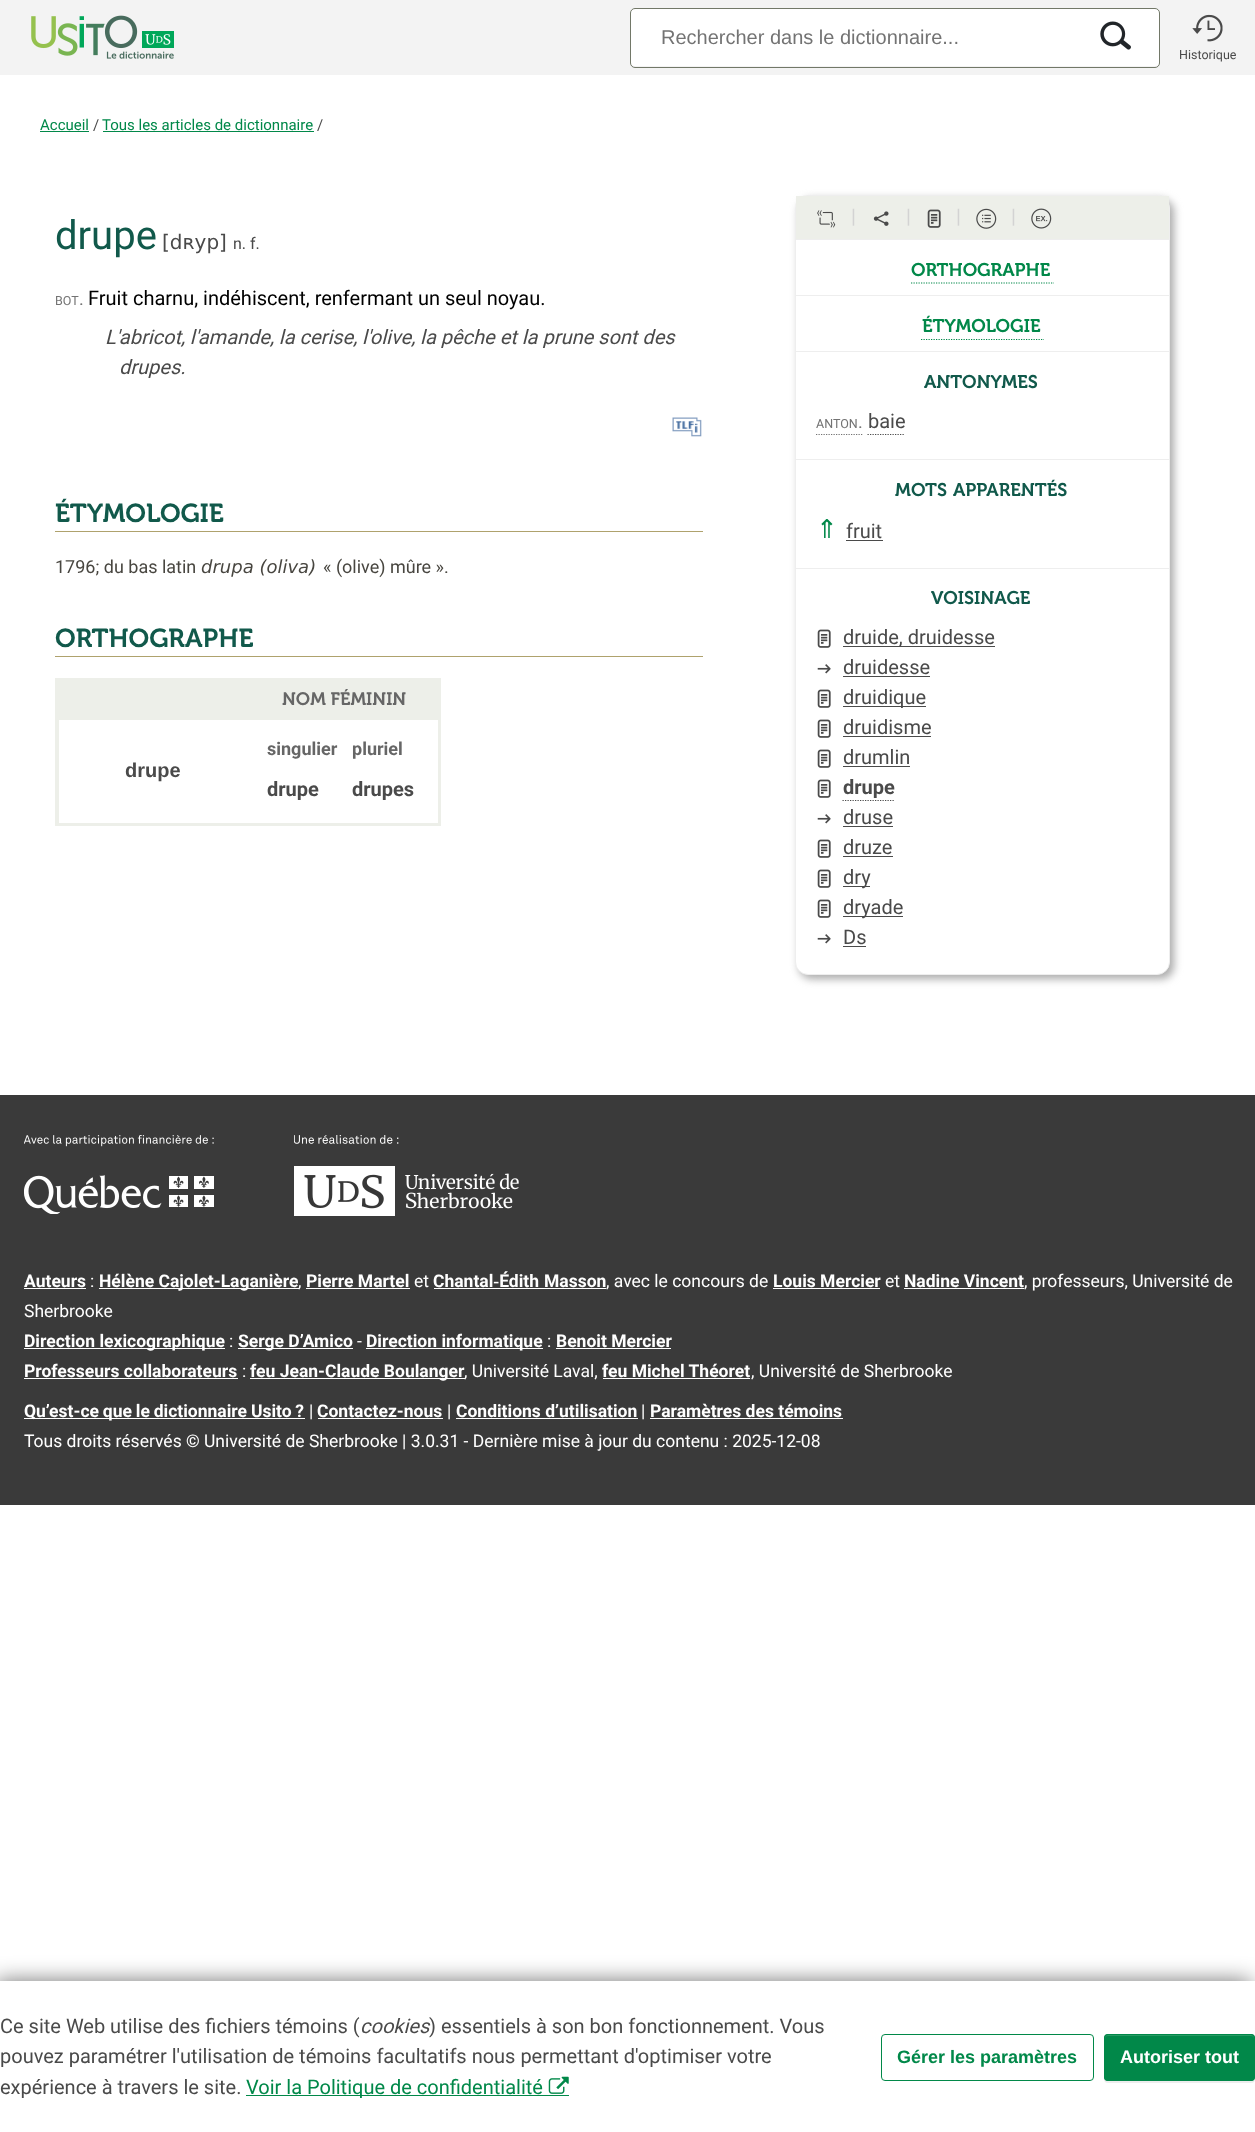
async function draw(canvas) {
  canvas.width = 1255;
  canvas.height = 2132;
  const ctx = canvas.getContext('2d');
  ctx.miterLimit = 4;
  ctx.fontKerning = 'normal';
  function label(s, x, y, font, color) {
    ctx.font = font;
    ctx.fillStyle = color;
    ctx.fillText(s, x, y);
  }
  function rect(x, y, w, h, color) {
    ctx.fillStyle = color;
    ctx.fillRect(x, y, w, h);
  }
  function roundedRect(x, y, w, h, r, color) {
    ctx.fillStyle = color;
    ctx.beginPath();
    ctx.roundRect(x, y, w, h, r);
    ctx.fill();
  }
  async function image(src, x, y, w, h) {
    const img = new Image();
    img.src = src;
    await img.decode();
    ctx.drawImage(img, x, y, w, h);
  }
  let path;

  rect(0, 0, 1255, 2132, '#fff');
  rect(0, 0, 1255, 75, '#f3f3f3');
  await image('assets/img1.png', 31, 15, 143, 44);
  roundedRect(631, 9, 528, 57, 4, '#fff');
  ctx.beginPath();
  ctx.roundRect(630.5, 8.5, 529, 59, 4.5);
  ctx.strokeStyle = '#727868';
  ctx.stroke();
  label('Rechercher dans le dictionnaire...', 661, 44, '20px Liberation Sans', '#737373');
  await image('assets/img2.png', 1100, 21, 31, 29);
  await image('assets/img3.png', 1192, 14, 31, 28);
  label('Historique', 1179, 59, '12.5px Roboto', '#4a4a4a');
  label('Accueil', 40, 130, '15px Roboto', '#018849');
  rect(40, 131, 49, 1, '#018849');
  label('/', 93, 130, '15px Roboto', '#4a4a4a');
  label('Tous les articles de dictionnaire', 102, 130, '15px Roboto', '#018849');
  rect(103, 131, 211, 1, '#018849');
  label('/', 317, 130, '15px Roboto', '#4a4a4a');
  label('drupe', 55, 249, '40px Roboto', '#11594b');
  label('[dʀyp]', 162, 249, '20px DejaVu Sans', '#4a4a4a');
  label('n. f.', 233, 249, '16px Roboto', '#4a4a4a');
  label('BOT', 55, 305, '12.5px Roboto', '#737373');
  label('.', 79, 305, '18px Roboto', '#737373');
  label('Fruit charnu, indéhiscent, renfermant un seul noyau.', 88, 305, '20px Roboto', '#000');
  label('L\'abricot, l\'amande, la cerise, l\'olive, la pêche et la prune sont des', 105, 344, 'italic 20px Roboto', '#4a4a4a');
  label('drupes.', 119, 374, 'italic 20px Roboto', '#4a4a4a');
  await image('assets/img4.png', 672, 417, 30, 20);
  rect(55, 531, 648, 1, '#afa26d');
  label('ÉTYMOLOGIE', 55, 522, '600 26px "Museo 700"', '#11594b');
  label('1796; du bas latin', 55, 573, '18px Roboto', '#484640');
  label('drupa (oliva)', 201, 573, 'italic 18px DejaVu Sans', '#484640');
  label('« (olive) mûre ».', 323, 573, '18px Roboto', '#484640');
  rect(55, 656, 648, 1, '#afa26d');
  label('ORTHOGRAPHE', 55, 647, '600 26px "Museo 700"', '#11594b');
  rect(55, 678, 386, 148, '#edefe9');
  label('NOM FÉMININ', 282, 705, '600 18px "Museo 700"', '#666');
  rect(59, 720, 379, 103, '#fff');
  label('drupe', 125, 777, 'bold 20px Liberation Sans', '#4a4a4a');
  label('singulier', 267, 755, 'bold 18px Roboto', '#666');
  label('pluriel', 352, 755, 'bold 18px Roboto', '#666');
  label('drupe', 267, 796, 'bold 20px Roboto', '#4a4a4a');
  label('drupes', 352, 796, 'bold 20px Roboto', '#4a4a4a');
  ctx.fillStyle = '#aaa';
  ctx.filter = 'blur(4px)';
  ctx.beginPath();
  ctx.roundRect(799, 199, 375, 780, 13);
  ctx.fill();
  ctx.filter = 'none';
  ctx.fillStyle = '#fff';
  ctx.beginPath();
  ctx.roundRect(795.5, 195.5, 374, 779, 12.5);
  ctx.fill();
  ctx.strokeStyle = '#eee';
  ctx.stroke();
  rect(796, 196, 373, 43, '#edefe9');
  await image('assets/img5.png', 817, 210, 19, 18);
  label('|', 851, 223, '20px Roboto', '#d3d3d3');
  await image('assets/img6.png', 873, 211, 16, 15);
  label('|', 906, 223, '20px Roboto', '#d3d3d3');
  await image('assets/img7.png', 927, 209, 14, 19);
  label('|', 956, 223, '20px Roboto', '#d3d3d3');
  await image('assets/img8.png', 976, 208, 21, 21);
  label('|', 1011, 223, '20px Roboto', '#d3d3d3');
  await image('assets/img9.png', 1031, 208, 21, 21);
  rect(796, 239, 373, 1, '#eee');
  label('ORTHOGRAPHE', 911, 276, '600 18.25px "Museo 700"', '#018849');
  path = new Path2D('M911 283H1054');
  ctx.strokeStyle = '#018849';
  ctx.lineWidth = 1.2;
  ctx.setLineDash([1.25, 1.25]);
  ctx.stroke(path);
  rect(796, 295, 373, 1, '#eee');
  label('ÉTYMOLOGIE', 922, 332, '600 18.25px "Museo 700"', '#018849');
  path = new Path2D('M921 339.5H1044');
  ctx.stroke(path);
  rect(796, 351, 373, 1, '#eee');
  label('ANTONYMES', 924, 388, '600 18.25px "Museo 700"', '#11594b');
  label('ANTON', 816, 428, '12.5px Roboto', '#737373');
  label('.', 858, 428, '18px Roboto', '#737373');
  path = new Path2D('M816 434.5H862.5');
  ctx.strokeStyle = '#737373';
  ctx.stroke(path);
  label('baie', 868, 428, '20px Roboto', '#4a4a4a');
  path = new Path2D('M867.5 434.5H905');
  ctx.strokeStyle = '#4a4a4a';
  ctx.stroke(path);
  rect(796, 459, 373, 1, '#eee');
  label('MOTS', 895, 496, '600 18.25px "Museo 700"', '#11594b');
  label('APPARENTÉS', 953, 496, '600 18.25px "Museo 700"', '#11594b');
  label('⇑', 816, 538, '26px DejaVu Sans', '#018849');
  label('fruit', 846, 538, '20px Roboto', '#4a4a4a');
  rect(846, 540, 37, 1, '#4a4a4a');
  rect(796, 568, 373, 1, '#eee');
  label('VOISINAGE', 931, 604, '600 18.25px "Museo 700"', '#11594b');
  await image('assets/img10.png', 817, 629, 14, 19);
  rect(843, 646, 152, 1, '#4a4a4a');
  label('druide, druidesse', 843, 644, '20px Roboto', '#4a4a4a');
  await image('assets/img11.png', 817, 664, 14, 10);
  label('druidesse', 843, 674, '20px Roboto', '#4a4a4a');
  rect(843, 676, 87, 1, '#4a4a4a');
  await image('assets/img10.png', 817, 689, 14, 19);
  rect(843, 706, 83, 1, '#4a4a4a');
  label('druidique', 843, 704, '20px Roboto', '#4a4a4a');
  await image('assets/img10.png', 817, 719, 14, 19);
  label('druidisme', 843, 734, '20px Roboto', '#4a4a4a');
  rect(843, 736, 88, 1, '#4a4a4a');
  await image('assets/img10.png', 817, 749, 14, 19);
  label('drumlin', 843, 764, '20px Roboto', '#4a4a4a');
  rect(843, 766, 67, 1, '#4a4a4a');
  await image('assets/img10.png', 817, 779, 14, 19);
  label('drupe', 843, 794, 'bold 20px Roboto', '#4a4a4a');
  path = new Path2D('M842.5 800.5H895');
  ctx.stroke(path);
  await image('assets/img11.png', 817, 814, 14, 10);
  label('druse', 843, 824, '20px Roboto', '#4a4a4a');
  rect(843, 826, 50, 1, '#4a4a4a');
  await image('assets/img10.png', 817, 839, 14, 19);
  label('druze', 843, 854, '20px Roboto', '#4a4a4a');
  rect(843, 856, 50, 1, '#4a4a4a');
  await image('assets/img10.png', 817, 869, 14, 19);
  rect(843, 886, 27, 1, '#4a4a4a');
  label('dry', 843, 884, '20px Roboto', '#4a4a4a');
  await image('assets/img10.png', 817, 899, 14, 19);
  rect(843, 916, 60, 1, '#4a4a4a');
  label('dryade', 843, 914, '20px Roboto', '#4a4a4a');
  await image('assets/img11.png', 817, 934, 14, 10);
  label('Ds', 843, 944, '20px Roboto', '#4a4a4a');
  rect(843, 946, 23, 1, '#4a4a4a');
  rect(0, 1095, 1255, 410, '#3a3a3a');
  await image('assets/img12.png', 24, 1135, 190, 79);
  await image('assets/img13.png', 294, 1135, 225, 81);
  label('Auteurs', 24, 1287, 'bold 17.5px Roboto', '#fff');
  rect(24, 1288, 62, 1, '#fff');
  label(':', 90, 1287, '17.5px Roboto', '#fff');
  rect(99, 1288, 200, 1, '#fff');
  label('Hélène Cajolet-Laganière', 99, 1287, 'bold 17.5px Roboto', '#fff');
  label(',', 298, 1287, '17.5px Roboto', '#fff');
  label('Pierre Martel', 306, 1287, 'bold 17.5px Roboto', '#fff');
  rect(306, 1288, 104, 1, '#fff');
  label('et', 414, 1287, '17.5px Roboto', '#fff');
  label('Chantal‑Édith', 433, 1287, 'bold 17.5px Roboto', '#fff');
  label('Masson', 544, 1287, 'bold 17.5px Roboto', '#fff');
  rect(434, 1288, 172, 1, '#fff');
  label(', avec le concours de', 606, 1287, '17.5px Roboto', '#fff');
  label('Louis Mercier', 773, 1287, 'bold 17.5px Roboto', '#fff');
  rect(773, 1288, 107, 1, '#fff');
  label('et', 885, 1287, '17.5px Roboto', '#fff');
  label('Nadine Vincent', 904, 1287, 'bold 17.5px Roboto', '#fff');
  rect(904, 1288, 120, 1, '#fff');
  label(', professeurs, Université de', 1024, 1287, '17.5px Roboto', '#fff');
  label('Sherbrooke', 24, 1317, '17.5px Roboto', '#fff');
  rect(24, 1348, 201, 1, '#fff');
  label('Direction lexicographique', 24, 1347, 'bold 17.5px Roboto', '#fff');
  label(':', 229, 1347, '17.5px Roboto', '#fff');
  rect(238, 1348, 115, 1, '#fff');
  label('Serge D’Amico', 238, 1347, 'bold 17.5px Roboto', '#fff');
  label('-', 357, 1347, '17.5px Roboto', '#fff');
  rect(366, 1348, 177, 1, '#fff');
  label('Direction informatique', 366, 1347, 'bold 17.5px Roboto', '#fff');
  label(':', 547, 1347, '17.5px Roboto', '#fff');
  label('Benoit Mercier', 556, 1347, 'bold 17.5px Roboto', '#fff');
  rect(556, 1348, 115, 1, '#fff');
  label('Professeurs collaborateurs', 24, 1377, 'bold 17.5px Roboto', '#fff');
  rect(24, 1378, 214, 1, '#fff');
  label(':', 242, 1377, '17.5px Roboto', '#fff');
  rect(250, 1378, 215, 1, '#fff');
  label('feu Jean-Claude Boulanger', 250, 1377, 'bold 17.5px Roboto', '#fff');
  label(', Université Laval,', 464, 1377, '17.5px Roboto', '#fff');
  label('feu Michel Théoret', 602, 1377, 'bold 17.5px Roboto', '#fff');
  rect(603, 1378, 147, 1, '#fff');
  label(', Université de Sherbrooke', 751, 1377, '17.5px Roboto', '#fff');
  rect(24, 1418, 281, 1, '#fff');
  ctx.wordSpacing = '-0.5px';
  label('Qu’est-ce que le dictionnaire Usito ?', 24, 1417, 'bold 17.5px Roboto', '#fff');
  ctx.wordSpacing = '0px';
  label('|', 309, 1417, '17.5px Roboto', '#fff');
  label('Contactez-nous', 317, 1417, 'bold 17.5px Roboto', '#fff');
  rect(318, 1418, 125, 1, '#fff');
  label('|', 447, 1417, '17.5px Roboto', '#fff');
  label('Conditions d’utilisation', 456, 1417, 'bold 17.5px Roboto', '#fff');
  rect(456, 1418, 182, 1, '#fff');
  label('|', 641, 1417, '17.5px Roboto', '#fff');
  label('Paramètres des témoins', 650, 1417, 'bold 17.5px Roboto', '#fff');
  rect(650, 1418, 193, 1, '#fff');
  label('Tous droits réservés', 24, 1447, '17.5px Roboto', '#fff');
  label('©', 186, 1447, 'bold 17.5px Roboto', '#fff');
  label('Université de Sherbrooke | 3.0.31 - Dernière mise à jour du contenu : 2025-12-08', 204, 1447, '17.5px Roboto', '#fff');
  ctx.fillStyle = '#0000008c';
  ctx.filter = 'blur(11px)';
  ctx.beginPath();
  ctx.rect(-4, 1981, 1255, 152);
  ctx.fill();
  ctx.filter = 'none';
  rect(0, 1981, 1255, 151, '#fff');
  label('Ce site Web utilise des fichiers témoins (', 0, 2033, '20px Roboto', '#4a4a4a');
  label('cookies', 360, 2033, 'italic 20px Roboto', '#4a4a4a');
  label(') essentiels à son bon fonctionnement. Vous', 429, 2033, '20px Roboto', '#4a4a4a');
  label('pouvez paramétrer l\'utilisation de témoins facultatifs nous permettant d\'optimiser votre', 0, 2063, '20px Roboto', '#4a4a4a');
  label('expérience à travers le site.', 0, 2094, '20px Roboto', '#4a4a4a');
  rect(246, 2095, 323, 1, '#018849');
  label('Voir la Politique de confidentialité', 246, 2094, '20px Roboto', '#018849');
  await image('assets/img14.png', 548, 2076, 21, 18);
  ctx.beginPath();
  ctx.roundRect(881.5, 2034.5, 212, 46, 3.5);
  ctx.strokeStyle = '#018849';
  ctx.lineWidth = 1;
  ctx.setLineDash([]);
  ctx.stroke();
  label('Gérer les paramètres', 897, 2063, 'bold 18px Liberation Sans', '#018849');
  ctx.fillStyle = '#00000012';
  ctx.filter = 'blur(0.5px)';
  ctx.beginPath();
  ctx.roundRect(1104, 2035, 151, 48, 4);
  ctx.fill();
  ctx.filter = 'none';
  roundedRect(1104, 2034, 151, 47, 4, '#018849');
  ctx.fillStyle = '#279a64';
  path = new Path2D('M1108 2036H1251C1253 2036 1254 2037 1254 2039C1254 2037 1254 2035 1252 2035H1107C1105 2035 1105 2037 1105 2039C1105 2037 1106 2036 1108 2036Z');
  ctx.fill(path);
  ctx.beginPath();
  ctx.roundRect(1104.5, 2034.5, 150, 46, 3.5);
  ctx.stroke();
  label('Autoriser tout', 1120, 2063, 'bold 18px Liberation Sans', '#fff');
}

draw(document.querySelector('canvas'));
